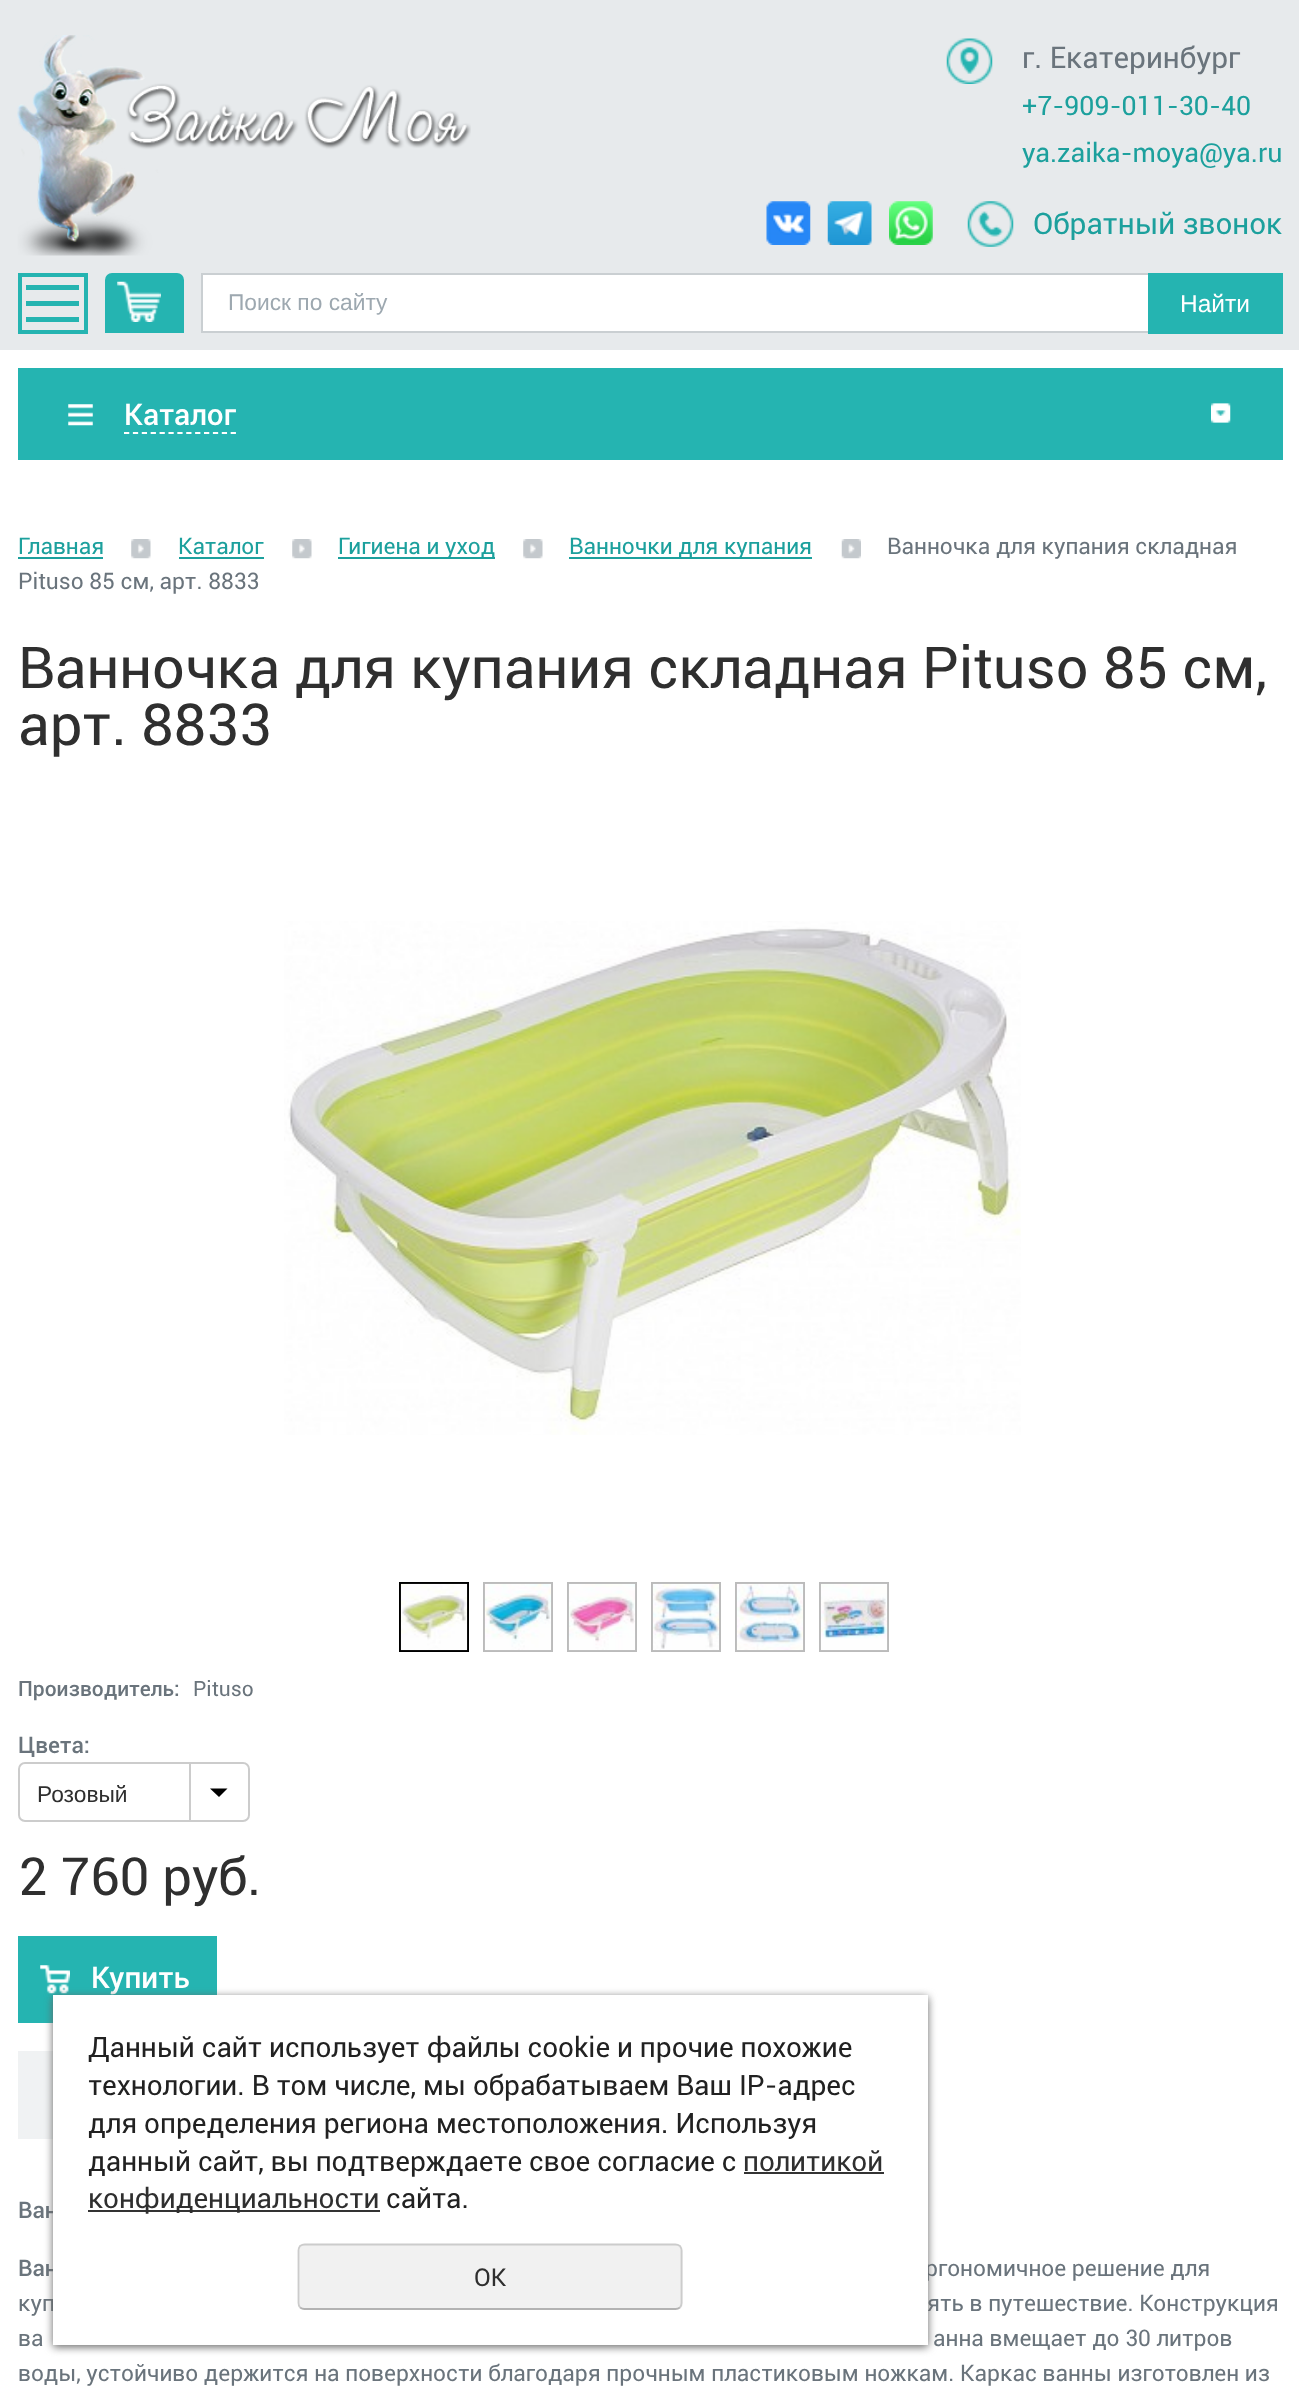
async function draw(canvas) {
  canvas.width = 1299;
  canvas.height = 2397;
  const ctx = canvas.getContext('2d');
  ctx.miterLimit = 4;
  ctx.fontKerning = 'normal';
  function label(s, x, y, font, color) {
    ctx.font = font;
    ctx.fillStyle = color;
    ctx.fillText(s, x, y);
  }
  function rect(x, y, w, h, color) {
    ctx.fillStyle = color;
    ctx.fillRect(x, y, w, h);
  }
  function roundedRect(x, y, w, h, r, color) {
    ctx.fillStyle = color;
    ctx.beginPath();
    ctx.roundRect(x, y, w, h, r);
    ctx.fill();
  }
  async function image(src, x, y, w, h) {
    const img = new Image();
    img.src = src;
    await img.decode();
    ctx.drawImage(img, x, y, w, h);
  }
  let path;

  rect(0, 0, 1299, 2397, '#fff');
  rect(0, 0, 1299, 350, '#e7eaec');
  await image('assets/img1.png', 17, 35, 454, 221);
  await image('assets/img2.png', 946, 38, 47, 46);
  label('г. Екатеринбург', 1022, 68, '29.75px Roboto', '#6a747c');
  label('+7-909-011-30-40', 1022, 115, '26.75px Roboto', '#1ca09d');
  label('ya.zaika-moya@ya.ru', 1022, 162, '26.75px Roboto', '#1ca09d');
  await image('assets/img3.png', 766, 201, 45, 44);
  await image('assets/img4.png', 827, 201, 45, 44);
  await image('assets/img5.png', 889, 201, 44, 44);
  await image('assets/img6.png', 967, 201, 47, 46);
  label('Обратный звонок', 1033, 234, '29.75px Roboto', '#1ca09d');
  ctx.strokeStyle = '#25b4b1';
  ctx.lineWidth = 4;
  ctx.strokeRect(20, 275, 66, 57);
  rect(26, 285, 53, 5, '#25b4b1');
  rect(26, 301, 53, 5, '#25b4b1');
  rect(26, 317, 53, 5, '#25b4b1');
  ctx.beginPath();
  ctx.roundRect(105, 273, 79, 60, [7, 7, 0, 0]);
  ctx.fill();
  await image('assets/img7.png', 117, 281, 44, 41);
  rect(203, 275, 945, 56, '#fff');
  rect(201, 273, 947, 2, '#cacfd2');
  rect(201, 331, 947, 2, '#cacfd2');
  rect(201, 273, 2, 60, '#cacfd2');
  label('Поиск по сайту', 228, 310, '22.75px Liberation Sans', '#9da8b0');
  rect(1148, 273, 135, 61, '#25b4b1');
  label('Найти', 1180, 312, '24.5px Liberation Sans', '#fff');
  rect(18, 368, 1265, 92, '#25b4b1');
  await image('assets/img8.png', 68, 404, 25, 22);
  label('Каталог', 124, 425, '500 29.75px Roboto', '#fff');
  path = new Path2D('M124 433H236');
  ctx.strokeStyle = '#fff';
  ctx.lineWidth = 1.8;
  ctx.setLineDash([5.25, 3.64]);
  ctx.stroke(path);
  await image('assets/img9.png', 1211, 403, 20, 20);
  label('Главная', 18, 554, '22.75px Roboto', '#1ca09d');
  rect(18, 557, 85, 2, '#1ca09d');
  await image('assets/img10.png', 131, 539, 20, 20);
  label('Каталог', 178, 554, '22.75px Roboto', '#1ca09d');
  rect(179, 557, 85, 2, '#1ca09d');
  await image('assets/img10.png', 292, 539, 20, 20);
  rect(338, 557, 157, 2, '#1ca09d');
  label('Гигиена и уход', 338, 554, '22.75px Roboto', '#1ca09d');
  await image('assets/img10.png', 523, 539, 20, 20);
  rect(569, 557, 243, 2, '#1ca09d');
  label('Ванночки для купания', 569, 554, '22.75px Roboto', '#1ca09d');
  await image('assets/img11.png', 841, 539, 20, 20);
  label('Ванночка для купания складная', 887, 554, '22.75px Roboto', '#6a747c');
  label('Pituso 85 см, арт. 8833', 18, 589, '22.75px Roboto', '#6a747c');
  label('Ванночка для купания складная Pituso 85 см,', 18, 688, '57.75px Roboto', '#2f2f2f');
  label('арт. 8833', 18, 745, '57.75px Roboto', '#2f2f2f');
  await image('assets/img12.png', 284, 921, 737, 514);
  ctx.strokeStyle = '#000';
  ctx.lineWidth = 2;
  ctx.setLineDash([]);
  ctx.strokeRect(400, 1583, 68, 68);
  await image('assets/img13.png', 400, 1583, 68, 68);
  ctx.strokeStyle = '#bbb';
  ctx.strokeRect(484, 1583, 68, 68);
  await image('assets/img14.png', 484, 1583, 68, 68);
  ctx.strokeRect(568, 1583, 68, 68);
  await image('assets/img15.png', 568, 1583, 68, 68);
  ctx.strokeRect(652, 1583, 68, 68);
  await image('assets/img16.png', 652, 1583, 68, 68);
  ctx.strokeRect(736, 1583, 68, 68);
  await image('assets/img17.png', 736, 1583, 68, 68);
  ctx.strokeRect(820, 1583, 68, 68);
  await image('assets/img18.png', 820, 1583, 68, 68);
  label('Производитель:', 18, 1696, '500 21px Roboto', '#6a747c');
  label('Pituso', 193, 1696, '21px Roboto', '#6a747c');
  label('Цвета:', 18, 1753, '500 22.75px Roboto', '#6a747c');
  ctx.beginPath();
  ctx.roundRect(19, 1763, 230, 58, 6);
  ctx.strokeStyle = '#ccc';
  ctx.stroke();
  label('Розовый', 37, 1802, '22.75px Liberation Sans', '#2f2f2f');
  rect(189, 1764, 2, 56, '#ccc');
  ctx.fillStyle = '#000';
  path = new Path2D('M210 1788.5H227.5L219 1797Z');
  ctx.fill(path);
  label('2 760 руб.', 18, 1895, '52.5px Roboto', '#2f2f2f');
  rect(18, 1936, 199, 87, '#25b4b1');
  await image('assets/img19.png', 40, 1965, 30, 29);
  label('Купить', 91, 1988, '500 29.75px Roboto', '#fff');
  rect(18, 2051, 35, 88, '#f0f2f3');
  label('Ван', 18, 2218, '500 22.75px Roboto', '#6a747c');
  label('Ван', 18, 2276, '500 22.75px Roboto', '#6a747c');
  label('ргономичное решение для', 925, 2276, '22.75px Roboto', '#6a747c');
  label('куп', 18, 2311, '22.75px Roboto', '#6a747c');
  label('ять в путешествие. Конструкция', 927, 2311, '22.75px Roboto', '#6a747c');
  label('ва', 18, 2346, '22.75px Roboto', '#6a747c');
  label('анна вмещает до 30 литров', 933, 2346, '22.75px Roboto', '#6a747c');
  label('воды, устойчиво держится на поверхности благодаря прочным пластиковым ножкам. Каркас ванны изготовлен из', 18, 2381, '22.75px Roboto', '#6a747c');
  ctx.fillStyle = '#666';
  ctx.filter = 'blur(4.5px)';
  ctx.beginPath();
  ctx.rect(53, 1997, 875, 350);
  ctx.fill();
  ctx.filter = 'none';
  rect(53, 1995, 875, 350, '#fff');
  label('Данный сайт использует файлы cookie и прочие похожие', 88, 2057, '28px Roboto', '#212121');
  label('технологии. В том числе, мы обрабатываем Ваш IP-адрес', 88, 2095, '28px Roboto', '#212121');
  label('для определения региона местоположения. Используя', 88, 2133, '28px Roboto', '#212121');
  label('данный сайт, вы подтверждаете свое согласие с', 88, 2171, '28px Roboto', '#212121');
  label('политикой', 743, 2171, '28px Roboto', '#2f2f2f');
  rect(744, 2172, 140, 2, '#333');
  rect(88, 2210, 292, 2, '#333');
  label('конфиденциальности', 88, 2208, '28px Roboto', '#2f2f2f');
  label('сайта.', 386, 2208, '28px Roboto', '#212121');
  roundedRect(298, 2244, 385, 66, 7, '#f1f1f1');
  path = new Path2D('M680 2307.5C678.5 2308.5 677 2309 675.5 2309H304.5C303 2309 301.5 2308.5 300 2307.5');
  ctx.strokeStyle = '#b3b3b3';
  ctx.lineWidth = 1.8;
  ctx.stroke(path);
  path = new Path2D('M300 2307.5C299 2306 298.5 2304.5 298.5 2303V2250.5C298.5 2249 299 2247.5 300 2246C301.5 2245 303 2244.5 304.5 2244.5H675.5C677 2244.5 678.5 2245 680 2246C681 2247.5 681.5 2249 681.5 2250.5V2303C681.5 2304.5 681 2306 680 2307.5');
  ctx.strokeStyle = '#ccc';
  ctx.stroke(path);
  label('OK', 474, 2286, '24.5px Roboto', '#2f2f2f');
}

draw(document.querySelector('canvas'));
